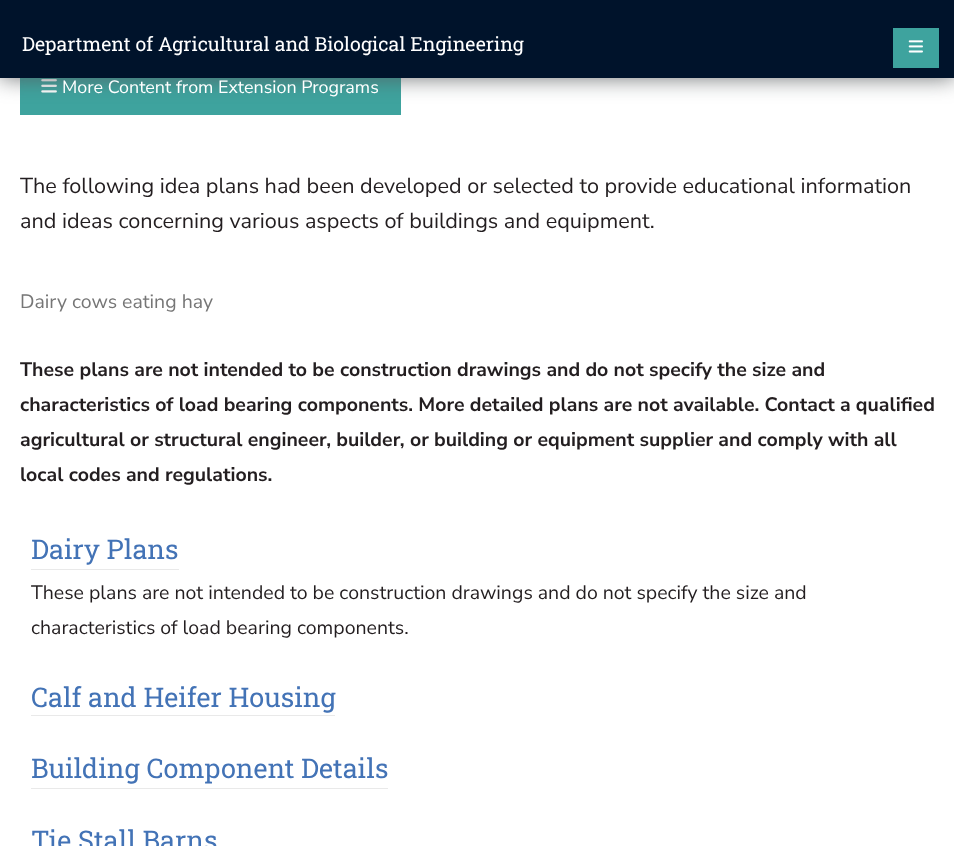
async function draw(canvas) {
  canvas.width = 954;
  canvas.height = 846;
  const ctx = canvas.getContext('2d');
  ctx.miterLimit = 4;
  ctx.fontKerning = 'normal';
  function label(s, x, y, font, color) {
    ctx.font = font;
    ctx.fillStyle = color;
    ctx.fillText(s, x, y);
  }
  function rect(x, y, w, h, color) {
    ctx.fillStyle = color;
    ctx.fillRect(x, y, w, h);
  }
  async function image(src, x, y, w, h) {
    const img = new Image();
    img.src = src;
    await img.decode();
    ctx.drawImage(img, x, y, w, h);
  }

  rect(0, 0, 954, 846, '#fff');
  rect(20, 78, 381, 37, '#3ea39e');
  await image('assets/img2.png', 41, 79, 16, 14);
  ctx.fillStyle = '#54585ad9';
  ctx.filter = 'blur(11px)';
  ctx.beginPath();
  ctx.rect(0, 0, 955, 78);
  ctx.fill();
  ctx.filter = 'none';
  rect(0, 0, 954, 78, '#00132b');
  label('Department of Agricultural and Biological Engineering', 22, 51, '19.5px Roboto Slab', '#fff');
  rect(893, 28, 46, 40, '#3ea39e');
  await image('assets/img1.png', 908, 40, 15, 13);
  label('More Content from Extension Programs', 62, 93, '17.9px Nunito Sans', '#fff');
  label('The following idea plans had been developed or selected to provide educational information', 20, 193, '21.65px Nunito Sans', '#231e20');
  label('and ideas concerning various aspects of buildings and equipment.', 20, 228, '21.65px Nunito Sans', '#231e20');
  label('Dairy cows eating hay', 20, 308, '19.5px Nunito Sans', '#767676');
  label('These plans are not intended to be construction drawings and do not specify the size and', 20, 376, 'bold 19.5px Nunito Sans', '#231e20');
  label('characteristics of load bearing components. More detailed plans are not available. Contact a qualified', 20, 411, 'bold 19.5px Nunito Sans', '#231e20');
  label('agricultural or structural engineer, builder, or building or equipment supplier and comply with all', 20, 446, 'bold 19.5px Nunito Sans', '#231e20');
  label('local codes and regulations.', 20, 481, 'bold 19.5px Nunito Sans', '#231e20');
  rect(31, 569, 148, 1, '#e9e9e9');
  label('Dairy Plans', 31, 559, '27.1px Roboto Slab', '#4373b6');
  label('These plans are not intended to be construction drawings and do not specify the size and', 31, 599, '19.5px Nunito Sans', '#231e20');
  label('characteristics of load bearing components.', 31, 634, '19.5px Nunito Sans', '#231e20');
  rect(31, 715, 304, 1, '#e9e9e9');
  label('Calf and Heifer Housing', 31, 707, '27.1px Roboto Slab', '#4373b6');
  rect(31, 788, 357, 1, '#e9e9e9');
  label('Building Component Details', 31, 778, '27.1px Roboto Slab', '#4373b6');
  label('Tie Stall Barns', 31, 850, '27.1px Roboto Slab', '#4373b6');
}

draw(document.querySelector('canvas'));
